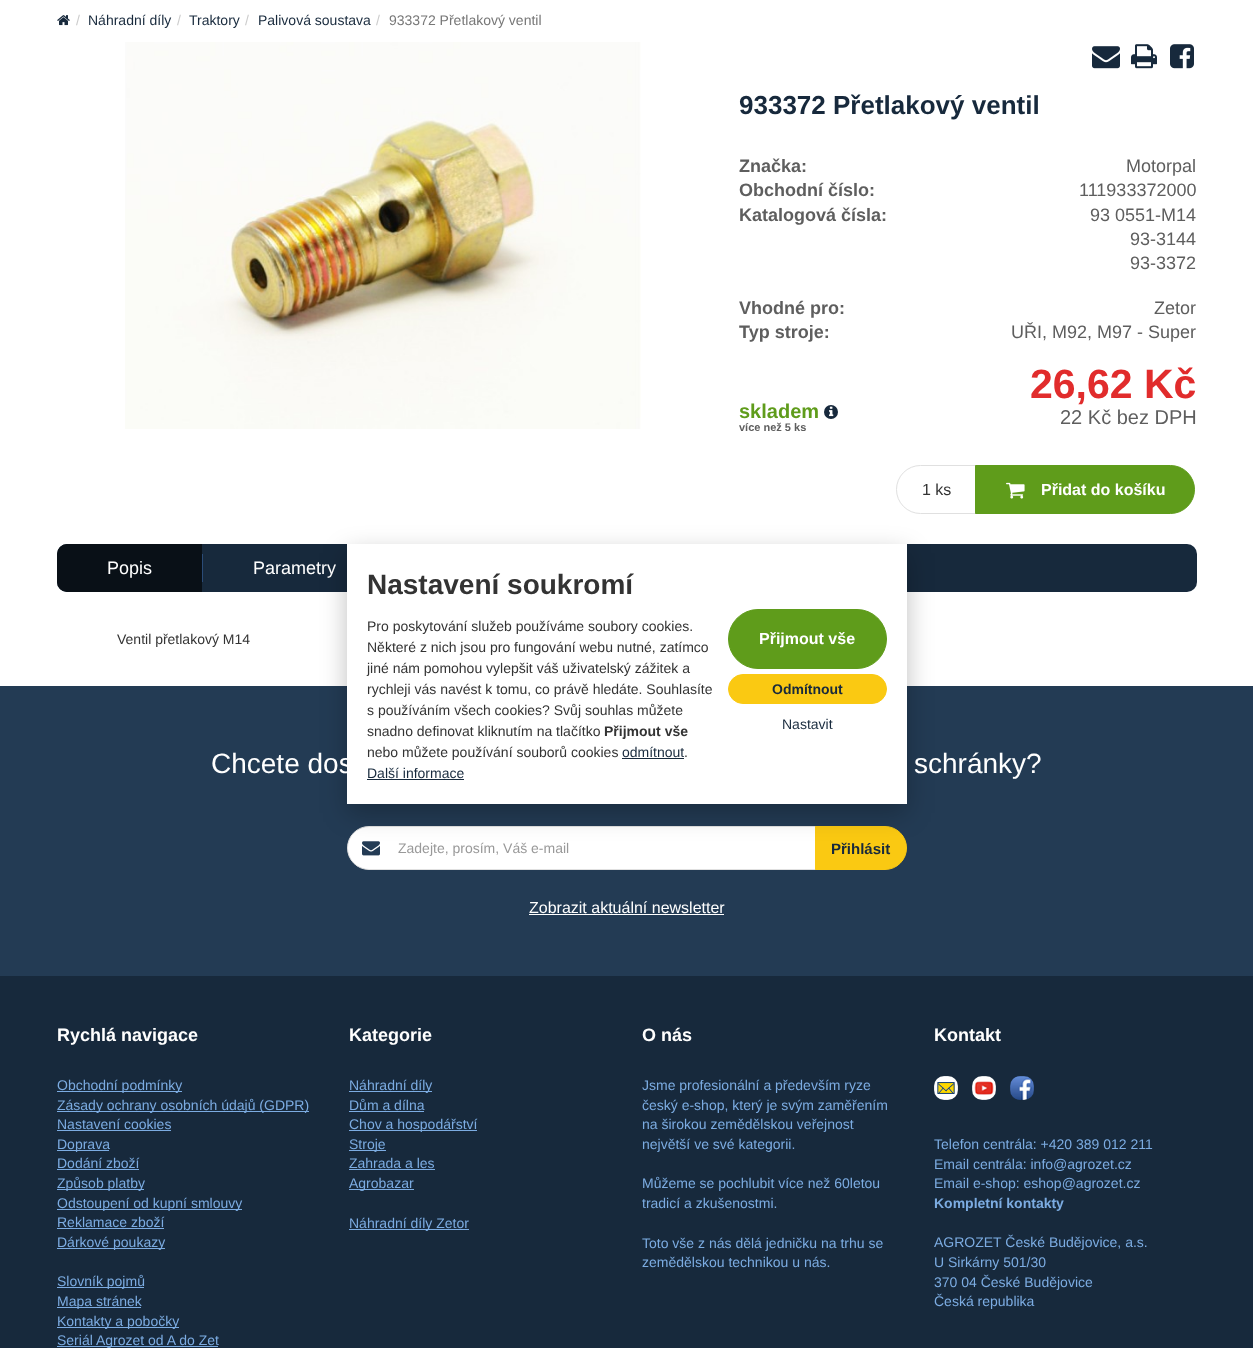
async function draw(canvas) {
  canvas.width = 1253;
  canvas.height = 1348;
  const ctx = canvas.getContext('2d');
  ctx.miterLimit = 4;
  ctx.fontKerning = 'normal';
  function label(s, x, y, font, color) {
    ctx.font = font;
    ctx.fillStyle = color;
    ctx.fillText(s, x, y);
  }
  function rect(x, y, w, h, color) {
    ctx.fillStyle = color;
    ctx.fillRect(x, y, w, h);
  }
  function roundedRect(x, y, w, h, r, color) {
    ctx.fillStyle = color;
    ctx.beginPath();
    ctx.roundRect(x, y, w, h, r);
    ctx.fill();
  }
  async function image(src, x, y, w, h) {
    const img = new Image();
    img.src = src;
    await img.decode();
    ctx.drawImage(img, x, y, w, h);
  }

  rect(0, 0, 1253, 1348, '#fff');
  await image('assets/img1.png', 57, 15, 13, 11);
  label('/', 76, 25, '14px Liberation Sans', '#ccc');
  label('Náhradní díly', 88, 25, '14px Liberation Sans', '#17293c');
  label('/', 177, 25, '14px Liberation Sans', '#ccc');
  label('Traktory', 189, 25, '14px Liberation Sans', '#17293c');
  label('/', 245, 25, '14px Liberation Sans', '#ccc');
  label('Palivová soustava', 258, 25, '14px Liberation Sans', '#17293c');
  label('/', 376, 25, '14px Liberation Sans', '#ccc');
  label('933372 Přetlakový ventil', 389, 25, '14px Liberation Sans', '#777');
  await image('assets/img2.png', 125, 42, 516, 387);
  await image('assets/img3.png', 1092, 46, 28, 23);
  await image('assets/img4.png', 1131, 44, 26, 25);
  await image('assets/img5.png', 1170, 44, 24, 25);
  label('933372 Přetlakový ventil', 739, 114, 'bold 26px Liberation Sans', '#17293c');
  label('Značka:', 739, 172, 'bold 18px Liberation Sans', '#5e5e5e');
  label('Motorpal', 1126, 172, '18px Liberation Sans', '#5e5e5e');
  label('Obchodní číslo:', 739, 196, 'bold 18px Liberation Sans', '#5e5e5e');
  label('111933372000', 1079, 196, '18px Liberation Sans', '#5e5e5e');
  label('Katalogová čísla:', 739, 221, 'bold 18px Liberation Sans', '#5e5e5e');
  label('93 0551-M14', 1090, 221, '18px Liberation Sans', '#5e5e5e');
  label('93-3144', 1130, 245, '18px Liberation Sans', '#5e5e5e');
  label('93-3372', 1130, 269, '18px Liberation Sans', '#5e5e5e');
  label('Vhodné pro:', 739, 314, 'bold 18px Liberation Sans', '#5e5e5e');
  label('Zetor', 1154, 314, '18px Liberation Sans', '#5e5e5e');
  label('Typ stroje:', 739, 338, 'bold 18px Liberation Sans', '#5e5e5e');
  label('UŘI, M92, M97 - Super', 1011, 338, '18px Liberation Sans', '#5e5e5e');
  label('26,62 Kč', 1030, 398, 'bold 41px Liberation Sans', '#e12c2c');
  label('skladem', 739, 418, 'bold 20px Liberation Sans', '#5f9c1b');
  ctx.fillStyle = '#17293c';
  ctx.beginPath();
  ctx.arc(831, 412, 7, 0, 2 * Math.PI);
  ctx.fill();
  await image('assets/img6.png', 829, 406, 5, 11);
  label('více než 5 ks', 739, 431, 'bold 11px Liberation Sans', '#5e5e5e');
  label('22 Kč bez DPH', 1060, 424, '20px Liberation Sans', '#5e5e5e');
  ctx.beginPath();
  ctx.roundRect(896.5, 465.5, 79, 48, [24, 0, 0, 24]);
  ctx.strokeStyle = '#e0e0e0';
  ctx.stroke();
  label('1 ks', 922, 495, '16px Liberation Sans', '#333');
  ctx.fillStyle = '#5f9c1b';
  ctx.beginPath();
  ctx.roundRect(975.5, 465.5, 219, 48, [0, 24, 24, 0]);
  ctx.fill();
  ctx.strokeStyle = '#5f9c1b';
  ctx.stroke();
  await image('assets/img7.png', 1006, 482, 19, 17);
  label('Přidat do košíku', 1041, 495, 'bold 16px Liberation Sans', '#fff');
  roundedRect(57, 544, 1140, 48, 10, '#17293c');
  ctx.fillStyle = '#091017';
  ctx.beginPath();
  ctx.roundRect(57, 544, 145, 48, [10, 0, 0, 10]);
  ctx.fill();
  label('Popis', 107, 574, '18px Liberation Sans', '#fff');
  rect(202, 554, 1, 28, '#2a4b77');
  label('Parametry', 253, 574, '18px Liberation Sans', '#fff');
  label('Ventil přetlakový M14', 117, 644, '14px Liberation Sans', '#333');
  rect(0, 686, 1253, 290, '#233b54');
  ctx.fillStyle = '#fff';
  ctx.beginPath();
  ctx.roundRect(347.5, 826.5, 468, 43, [21.5, 0, 0, 21.5]);
  ctx.fill();
  ctx.strokeStyle = '#e0e0e0';
  ctx.stroke();
  await image('assets/img8.png', 362, 841, 18, 15);
  ctx.fillStyle = '#fac912';
  ctx.beginPath();
  ctx.roundRect(815.5, 826.5, 91, 43, [0, 21.5, 21.5, 0]);
  ctx.fill();
  ctx.strokeStyle = '#fac912';
  ctx.stroke();
  ctx.fillStyle = '#00000040';
  ctx.filter = 'blur(13px)';
  ctx.beginPath();
  ctx.rect(347, 553, 560, 260);
  ctx.fill();
  ctx.filter = 'none';
  rect(347, 544, 560, 260, '#fff');
  label('Nastavení soukromí', 367, 594, 'bold 28px Liberation Sans', '#333');
  label('Pro poskytování služeb používáme soubory cookies.', 367, 631, '14px Liberation Sans', '#333');
  label('Některé z nich jsou pro fungování webu nutné, zatímco', 367, 652, '14px Liberation Sans', '#333');
  label('jiné nám pomohou vylepšit váš uživatelský zážitek a', 367, 673, '14px Liberation Sans', '#333');
  label('rychleji vás navést k tomu, co právě hledáte. Souhlasíte', 367, 694, '14px Liberation Sans', '#333');
  label('s používáním všech cookies? Svůj souhlas můžete', 367, 715, '14px Liberation Sans', '#333');
  label('snadno definovat kliknutím na tlačítko', 367, 736, '14px Liberation Sans', '#333');
  label('Přijmout vše', 604, 736, 'bold 14px Liberation Sans', '#333');
  label('nebo můžete používání souborů cookies', 367, 757, '14px Liberation Sans', '#333');
  label('odmítnout', 622, 757, '14px Liberation Sans', '#17293c');
  rect(622, 758, 62, 1, '#17293c');
  label('.', 684, 757, '14px Liberation Sans', '#333');
  label('Další informace', 367, 778, '14px Liberation Sans', '#17293c');
  rect(367, 779, 97, 1, '#17293c');
  ctx.fillStyle = '#5f9c1b';
  ctx.beginPath();
  ctx.roundRect(728.5, 609.5, 158, 59, 29.5);
  ctx.fill();
  ctx.strokeStyle = '#5f9c1b';
  ctx.stroke();
  label('Přijmout vše', 759, 644, 'bold 16px Liberation Sans', '#fff');
  ctx.fillStyle = '#fac912';
  ctx.beginPath();
  ctx.roundRect(728.5, 674.5, 158, 29, 14.5);
  ctx.fill();
  ctx.strokeStyle = '#fac912';
  ctx.stroke();
  label('Odmítnout', 772, 694, 'bold 14px Liberation Sans', '#17293c');
  label('Nastavit', 782, 729, '14px Liberation Sans', '#17293c');
  label('Chcete dos', 211, 773, '28px Liberation Sans', '#fff');
  label('schránky?', 914, 773, '28px Liberation Sans', '#fff');
  label('Zadejte, prosím, Váš e-mail', 398, 853, '14px Liberation Sans', '#999');
  label('Přihlásit', 831, 854, 'bold 15px Liberation Sans', '#17293c');
  label('Zobrazit aktuální newsletter', 529, 913, '16px Liberation Sans', '#fff');
  rect(529, 914, 195, 1, '#fff');
  rect(0, 976, 1253, 372, '#17293c');
  label('Rychlá navigace', 57, 1041, 'bold 18px Liberation Sans', '#fff');
  rect(57, 1091, 125, 1, '#7cace2');
  label('Obchodní podmínky', 57, 1090, '14px Liberation Sans', '#7cace2');
  rect(57, 1111, 252, 1, '#7cace2');
  label('Zásady ochrany osobních údajů (GDPR)', 57, 1110, '14px Liberation Sans', '#7cace2');
  label('Nastavení cookies', 57, 1129, '14px Liberation Sans', '#7cace2');
  rect(57, 1130, 114, 1, '#7cace2');
  rect(57, 1150, 52, 1, '#7cace2');
  label('Doprava', 57, 1149, '14px Liberation Sans', '#7cace2');
  label('Dodání zboží', 57, 1168, '14px Liberation Sans', '#7cace2');
  rect(57, 1169, 82, 1, '#7cace2');
  rect(57, 1189, 87, 1, '#7cace2');
  label('Způsob platby', 57, 1188, '14px Liberation Sans', '#7cace2');
  rect(57, 1209, 185, 1, '#7cace2');
  label('Odstoupení od kupní smlouvy', 57, 1208, '14px Liberation Sans', '#7cace2');
  label('Reklamace zboží', 57, 1227, '14px Liberation Sans', '#7cace2');
  rect(57, 1228, 107, 1, '#7cace2');
  rect(57, 1248, 108, 1, '#7cace2');
  label('Dárkové poukazy', 57, 1247, '14px Liberation Sans', '#7cace2');
  rect(57, 1287, 87, 1, '#7cace2');
  label('Slovník pojmů', 57, 1286, '14px Liberation Sans', '#7cace2');
  rect(57, 1307, 84, 1, '#7cace2');
  label('Mapa stránek', 57, 1306, '14px Liberation Sans', '#7cace2');
  rect(57, 1327, 122, 1, '#7cace2');
  label('Kontakty a pobočky', 57, 1326, '14px Liberation Sans', '#7cace2');
  rect(57, 1346, 161, 1, '#7cace2');
  label('Seriál Agrozet od A do Zet', 57, 1345, '14px Liberation Sans', '#7cace2');
  label('Kategorie', 349, 1041, 'bold 18px Liberation Sans', '#fff');
  rect(349, 1091, 83, 1, '#7cace2');
  label('Náhradní díly', 349, 1090, '14px Liberation Sans', '#7cace2');
  label('Dům a dílna', 349, 1110, '14px Liberation Sans', '#7cace2');
  rect(349, 1111, 75, 1, '#7cace2');
  rect(349, 1130, 128, 1, '#7cace2');
  label('Chov a hospodářství', 349, 1129, '14px Liberation Sans', '#7cace2');
  rect(349, 1150, 37, 1, '#7cace2');
  label('Stroje', 349, 1149, '14px Liberation Sans', '#7cace2');
  label('Zahrada a les', 349, 1168, '14px Liberation Sans', '#7cace2');
  rect(349, 1169, 86, 1, '#7cace2');
  rect(349, 1189, 65, 1, '#7cace2');
  label('Agrobazar', 349, 1188, '14px Liberation Sans', '#7cace2');
  rect(349, 1229, 120, 1, '#7cace2');
  label('Náhradní díly Zetor', 349, 1228, '14px Liberation Sans', '#7cace2');
  label('O nás', 642, 1041, 'bold 18px Liberation Sans', '#fff');
  label('Jsme profesionální a především ryze', 642, 1090, '14px Liberation Sans', '#7cace2');
  label('český e-shop, který je svým zaměřením', 642, 1110, '14px Liberation Sans', '#7cace2');
  label('na širokou zemědělskou veřejnost', 642, 1129, '14px Liberation Sans', '#7cace2');
  label('největší ve své kategorii.', 642, 1149, '14px Liberation Sans', '#7cace2');
  label('Můžeme se pochlubit více než 60letou', 642, 1188, '14px Liberation Sans', '#7cace2');
  label('tradicí a zkušenostmi.', 642, 1208, '14px Liberation Sans', '#7cace2');
  label('Toto vše z nás dělá jedničku na trhu se', 642, 1248, '14px Liberation Sans', '#7cace2');
  label('zemědělskou technikou u nás.', 642, 1267, '14px Liberation Sans', '#7cace2');
  label('Kontakt', 934, 1041, 'bold 18px Liberation Sans', '#fff');
  await image('assets/img9.png', 934, 1076, 24, 24);
  await image('assets/img10.png', 972, 1076, 24, 24);
  await image('assets/img11.png', 1010, 1076, 24, 24);
  label('Telefon centrála: +420 389 012 211', 934, 1149, '14px Liberation Sans', '#7cace2');
  label('Email centrála: info@agrozet.cz', 934, 1169, '14px Liberation Sans', '#7cace2');
  label('Email e-shop: eshop@agrozet.cz', 934, 1188, '14px Liberation Sans', '#7cace2');
  label('Kompletní kontakty', 934, 1208, 'bold 14px Liberation Sans', '#7cace2');
  label('AGROZET České Budějovice, a.s.', 934, 1247, '14px Liberation Sans', '#7cace2');
  label('U Sirkárny 501/30', 934, 1267, '14px Liberation Sans', '#7cace2');
  label('370 04 České Budějovice', 934, 1287, '14px Liberation Sans', '#7cace2');
  label('Česká republika', 934, 1306, '14px Liberation Sans', '#7cace2');
}

draw(document.querySelector('canvas'));
